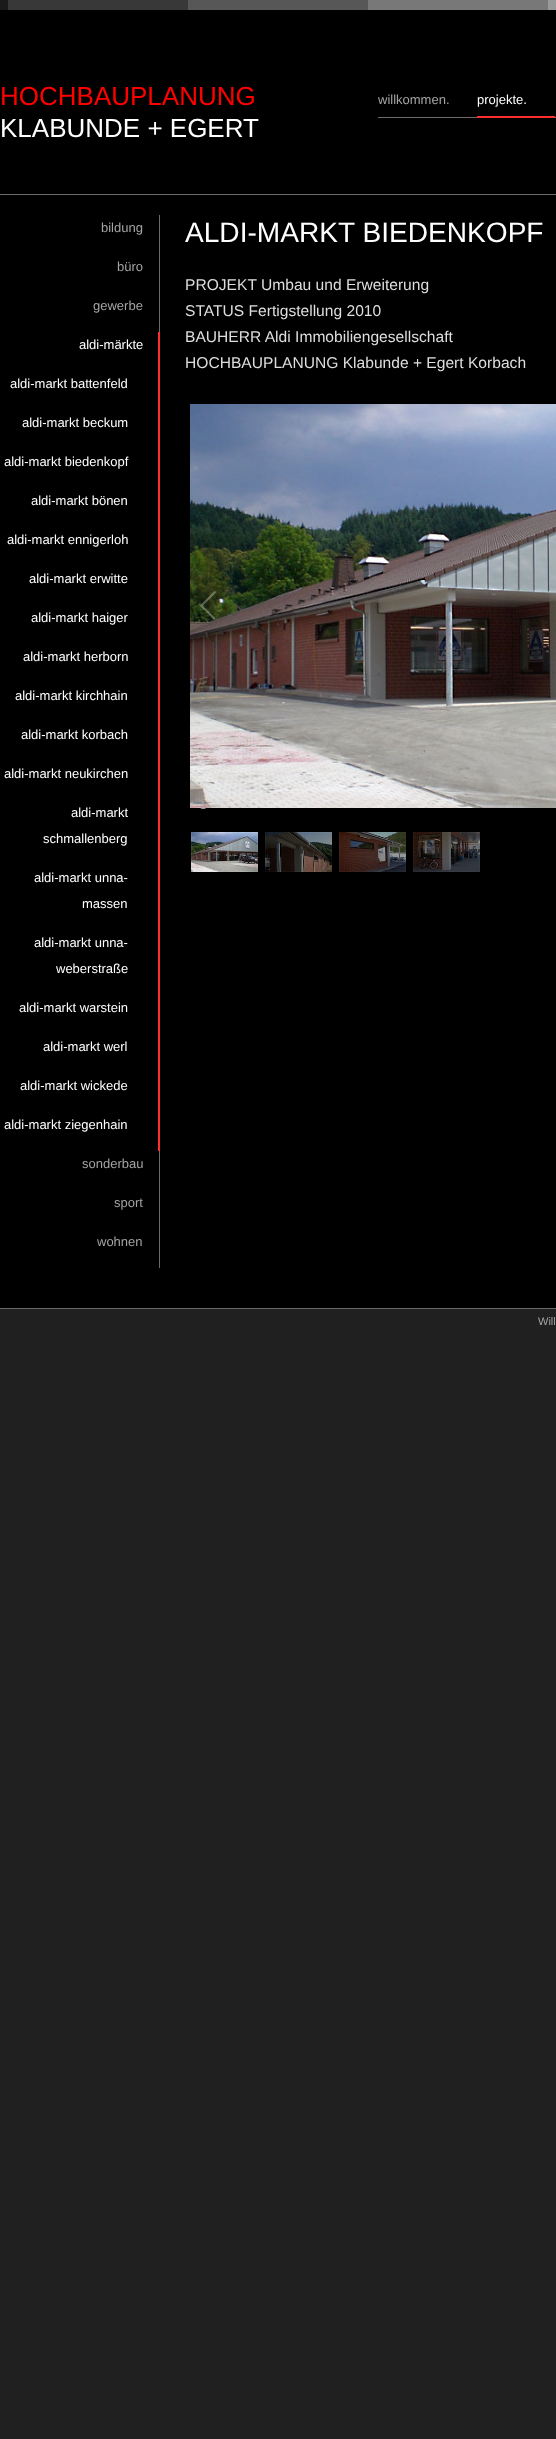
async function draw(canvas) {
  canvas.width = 556;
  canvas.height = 2439;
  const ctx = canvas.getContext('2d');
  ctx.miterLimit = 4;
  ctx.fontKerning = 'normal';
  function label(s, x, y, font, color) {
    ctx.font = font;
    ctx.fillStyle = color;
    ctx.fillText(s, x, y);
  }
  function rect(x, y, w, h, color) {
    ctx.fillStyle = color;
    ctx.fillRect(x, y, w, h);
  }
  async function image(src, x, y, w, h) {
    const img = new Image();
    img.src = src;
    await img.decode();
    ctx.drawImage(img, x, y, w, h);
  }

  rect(0, 0, 556, 2439, '#202020');
  rect(0, 0, 556, 1308, '#000');
  await image('assets/img1.png', 0, 0, 556, 10);
  label('HOCHBAUPLANUNG', 0, 105, '26px Liberation Sans', '#f00');
  label('KLABUNDE + EGERT', 0, 137, '26px Liberation Sans', '#fff');
  rect(378, 117, 99, 1, '#6a6a6a');
  label('willkommen.', 378, 104, '13px Liberation Sans', '#a4a4a4');
  rect(477, 116, 78, 2, '#ff2e2e');
  label('projekte.', 477, 104, '13px Liberation Sans', '#fff');
  rect(555, 117, 1, 1, '#6a6a6a');
  rect(0, 194, 556, 1, '#6a6a6a');
  rect(159, 215, 1, 117, '#6a6a6a');
  label('bildung', 101, 232, '13px Liberation Sans', '#a4a4a4');
  label('büro', 117, 271, '13px Liberation Sans', '#a4a4a4');
  label('gewerbe', 93, 310, '13px Liberation Sans', '#a4a4a4');
  rect(158, 332, 2, 819, '#ff2e2e');
  label('aldi-märkte', 79, 349, '13px Liberation Sans', '#fff');
  label('aldi-markt battenfeld', 10, 388, '13px Liberation Sans', '#fff');
  label('aldi-markt beckum', 22, 427, '13px Liberation Sans', '#fff');
  label('aldi-markt biedenkopf', 4, 466, '13px Liberation Sans', '#fff');
  label('aldi-markt bönen', 31, 505, '13px Liberation Sans', '#fff');
  label('aldi-markt ennigerloh', 7, 544, '13px Liberation Sans', '#fff');
  label('aldi-markt erwitte', 29, 583, '13px Liberation Sans', '#fff');
  label('aldi-markt haiger', 31, 622, '13px Liberation Sans', '#fff');
  label('aldi-markt herborn', 23, 661, '13px Liberation Sans', '#fff');
  label('aldi-markt kirchhain', 15, 700, '13px Liberation Sans', '#fff');
  label('aldi-markt korbach', 21, 739, '13px Liberation Sans', '#fff');
  label('aldi-markt neukirchen', 4, 778, '13px Liberation Sans', '#fff');
  label('aldi-markt', 71, 817, '13px Liberation Sans', '#fff');
  label('schmallenberg', 43, 843, '13px Liberation Sans', '#fff');
  label('aldi-markt unna-', 34, 882, '13px Liberation Sans', '#fff');
  label('massen', 82, 908, '13px Liberation Sans', '#fff');
  label('aldi-markt unna-', 34, 947, '13px Liberation Sans', '#fff');
  label('weberstraße', 56, 973, '13px Liberation Sans', '#fff');
  label('aldi-markt warstein', 19, 1012, '13px Liberation Sans', '#fff');
  label('aldi-markt werl', 43, 1051, '13px Liberation Sans', '#fff');
  label('aldi-markt wickede', 20, 1090, '13px Liberation Sans', '#fff');
  label('aldi-markt ziegenhain', 4, 1129, '13px Liberation Sans', '#fff');
  rect(159, 1151, 1, 117, '#6a6a6a');
  label('sonderbau', 82, 1168, '13px Liberation Sans', '#a4a4a4');
  label('sport', 114, 1207, '13px Liberation Sans', '#a4a4a4');
  label('wohnen', 97, 1246, '13px Liberation Sans', '#a4a4a4');
  label('ALDI-MARKT BIEDENKOPF', 185, 242, '28.1px Liberation Sans', '#fff');
  label('PROJEKT Umbau und Erweiterung', 185, 290, '15.6px Liberation Sans', '#dedede');
  label('STATUS Fertigstellung 2010', 185, 316, '15.6px Liberation Sans', '#dedede');
  label('BAUHERR Aldi Immobiliengesellschaft', 185, 342, '15.6px Liberation Sans', '#dedede');
  label('HOCHBAUPLANUNG Klabunde + Egert Korbach', 185, 368, '15.6px Liberation Sans', '#dedede');
  await image('assets/img2.png', 190, 404, 366, 404);
  await image('assets/img3.png', 200, 591, 16, 29);
  label('1', 200, 809, '11px Liberation Sans', '#ada7aa');
  await image('assets/img4.png', 191, 832, 67, 40);
  await image('assets/img5.png', 265, 832, 67, 40);
  await image('assets/img6.png', 339, 832, 67, 40);
  await image('assets/img7.png', 413, 832, 67, 40);
  rect(0, 1308, 556, 1, '#6a6a6a');
  label('Will', 538, 1325, '11px Liberation Sans', '#a4a4a4');
}

draw(document.querySelector('canvas'));
